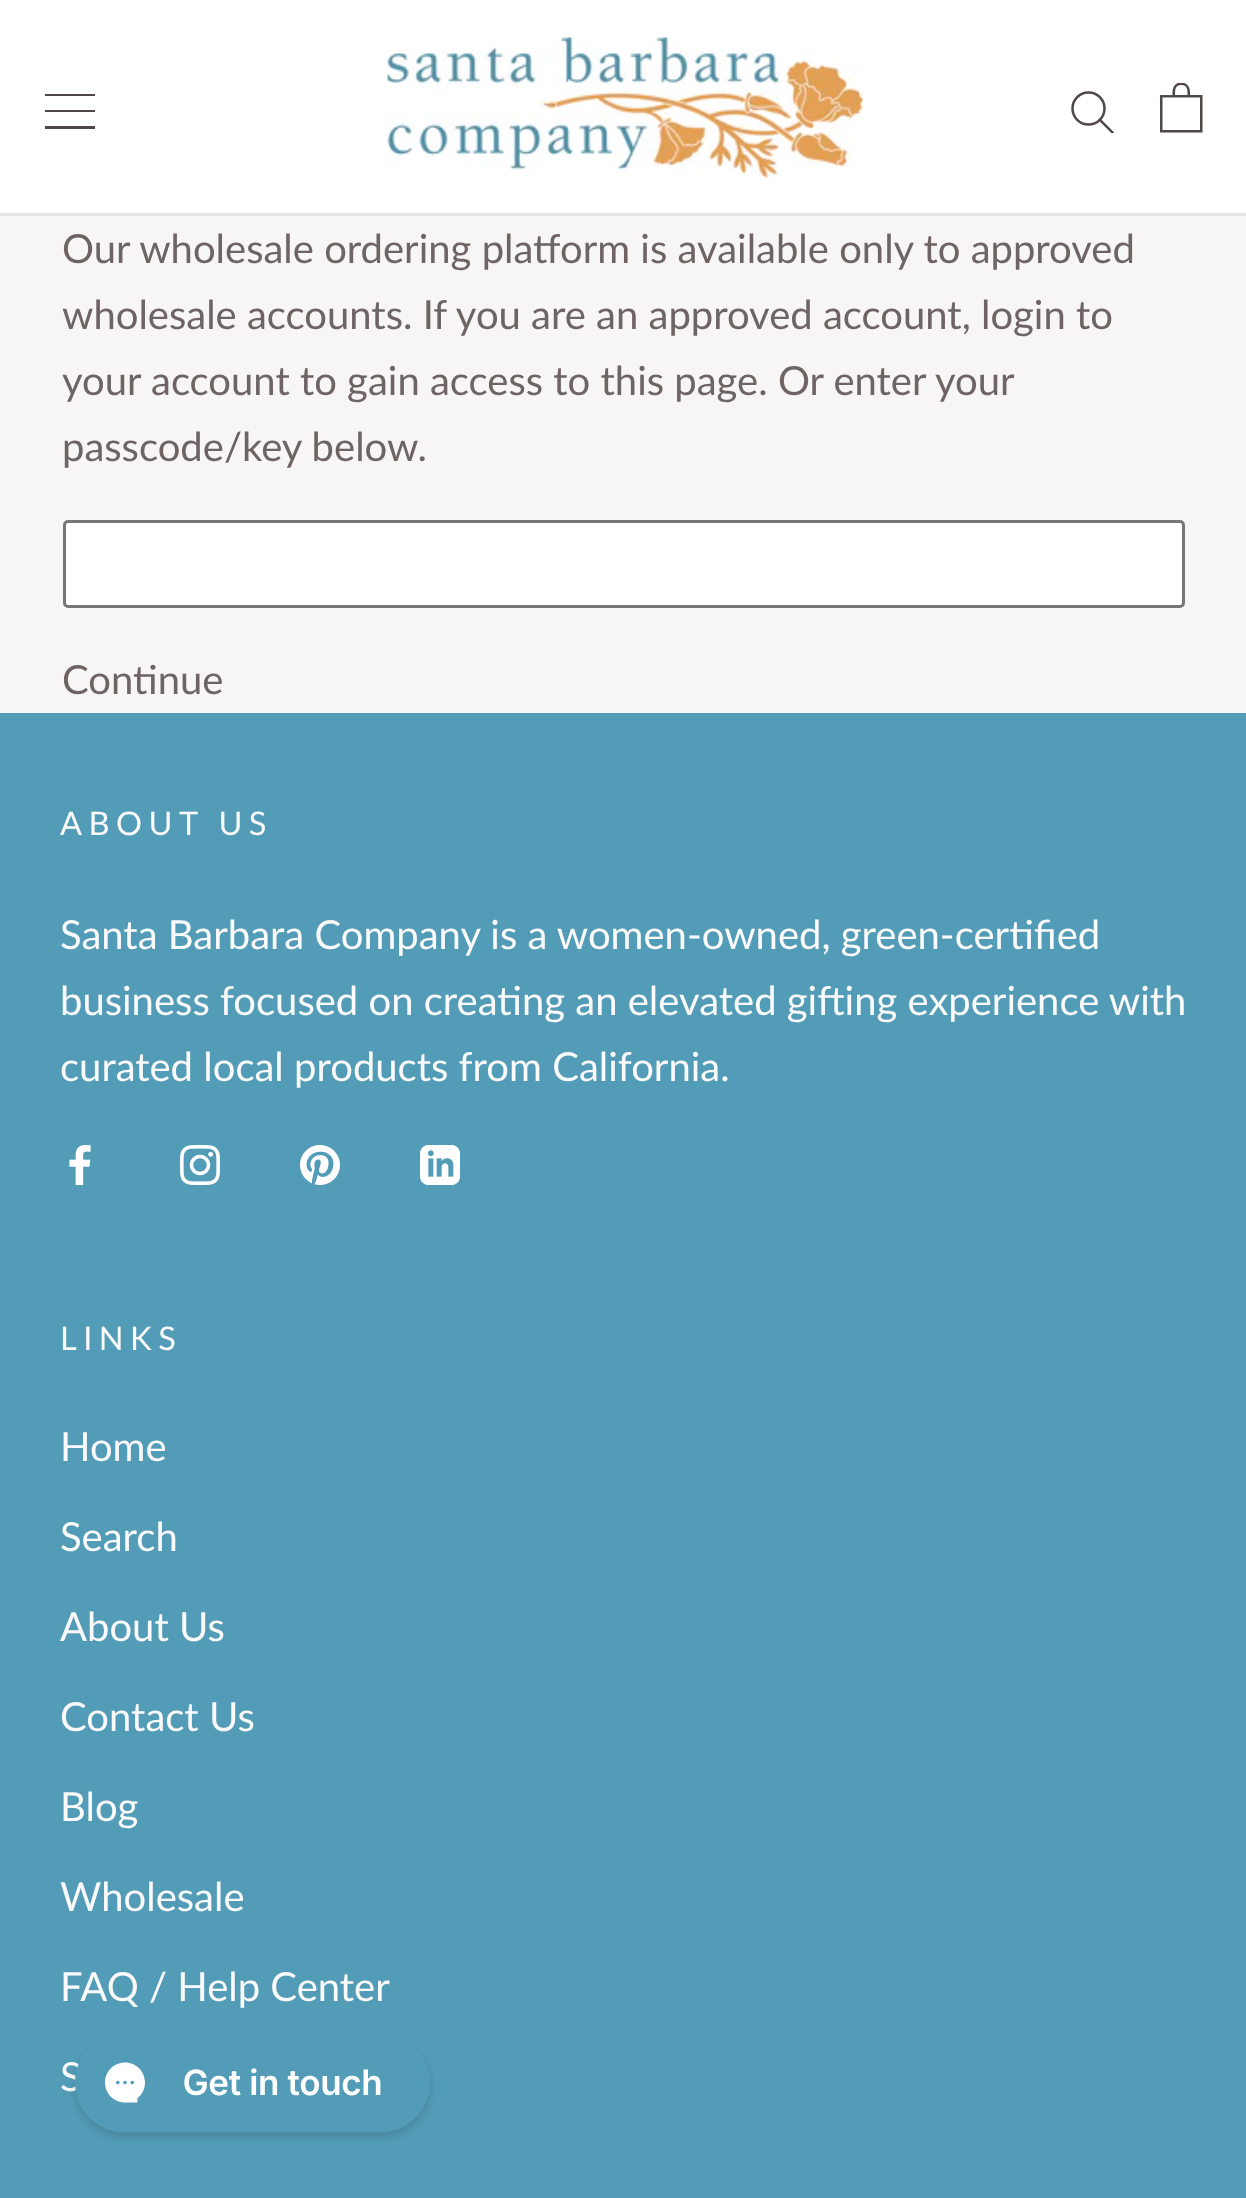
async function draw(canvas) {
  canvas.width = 1246;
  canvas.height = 2198;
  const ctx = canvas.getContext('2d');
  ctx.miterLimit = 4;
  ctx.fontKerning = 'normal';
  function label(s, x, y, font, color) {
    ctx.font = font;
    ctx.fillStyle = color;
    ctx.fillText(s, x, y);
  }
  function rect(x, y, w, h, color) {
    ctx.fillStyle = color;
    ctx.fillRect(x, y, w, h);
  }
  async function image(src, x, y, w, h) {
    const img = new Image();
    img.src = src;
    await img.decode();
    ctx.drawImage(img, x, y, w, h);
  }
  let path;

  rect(0, 0, 1246, 2198, '#f7f5f5');
  rect(0, 0, 1246, 213, '#fff');
  rect(0, 213, 1246, 3, '#e5e3e3');
  ctx.fillStyle = '#504747';
  path = new Path2D('M45 129V126H95V129ZM45 110H95V112H45ZM45 94H95V96H45Z');
  ctx.fill(path);
  await image('assets/img1.png', 387, 37, 476, 141);
  ctx.save();
  ctx.beginPath();
  ctx.rect(1070, 90, 45, 43);
  ctx.clip();
  path = new Path2D('M1112.5 132.5L1100 120');
  ctx.strokeStyle = '#504747';
  ctx.lineWidth = 2.5;
  ctx.lineCap = 'square';
  ctx.stroke(path);
  ctx.restore();
  ctx.beginPath();
  ctx.arc(1088.5, 108.5, 16, 0, 2 * Math.PI);
  ctx.strokeStyle = '#504747';
  ctx.lineWidth = 2.5;
  ctx.stroke();
  await image('assets/img2.png', 1160, 83, 43, 50);
  label('Our wholesale ordering platform is available only to approved', 62, 263, '40px Lato', '#6e6464');
  label('wholesale accounts. If you are an approved account, login to', 62, 329, '40px Lato', '#6e6464');
  label('your account to gain access to this page. Or enter your', 62, 395, '40px Lato', '#6e6464');
  label('passcode/key below.', 62, 461, '40px Lato', '#6e6464');
  ctx.fillStyle = '#fff';
  ctx.beginPath();
  ctx.roundRect(64.5, 521.5, 1119, 85, 3.5);
  ctx.fill();
  ctx.strokeStyle = '#767676';
  ctx.lineWidth = 3;
  ctx.stroke();
  label('Continue', 62, 694, '40px Lato', '#6e6464');
  rect(0, 713, 1246, 1485, '#539cb8');
  ctx.letterSpacing = '6.5px';
  label('ABOUT US', 60, 835, '32.5px Lato', '#fafafa');
  ctx.letterSpacing = '0px';
  label('Santa Barbara Company is a women-owned, green-certified', 60, 949, '40px Lato', '#fafafa');
  label('business focused on creating an elevated gifting experience with', 60, 1015, '40px Lato', '#fafafa');
  label('curated local products from California.', 60, 1081, '40px Lato', '#fafafa');
  await image('assets/img3.png', 69, 1145, 22, 40);
  await image('assets/img4.png', 180, 1145, 40, 40);
  await image('assets/img5.png', 300, 1145, 40, 40);
  await image('assets/img6.png', 420, 1145, 40, 40);
  ctx.letterSpacing = '6.5px';
  label('LINKS', 60, 1350, '32.5px Lato', '#fafafa');
  ctx.letterSpacing = '0px';
  label('Home', 60, 1461, '40px Lato', '#fafafa');
  label('Search', 60, 1551, '40px Lato', '#fafafa');
  label('About Us', 60, 1641, '40px Lato', '#fafafa');
  label('Contact Us', 60, 1731, '40px Lato', '#fafafa');
  label('Blog', 60, 1821, '40px Lato', '#fafafa');
  label('Wholesale', 60, 1911, '40px Lato', '#fafafa');
  label('FAQ / Help Center', 60, 2001, '40px Lato', '#fafafa');
  label('S', 60, 2091, '40px Lato', '#fafafa');
  await image('assets/img7.png', 70, 2044, 365, 98);
}

draw(document.querySelector('canvas'));
